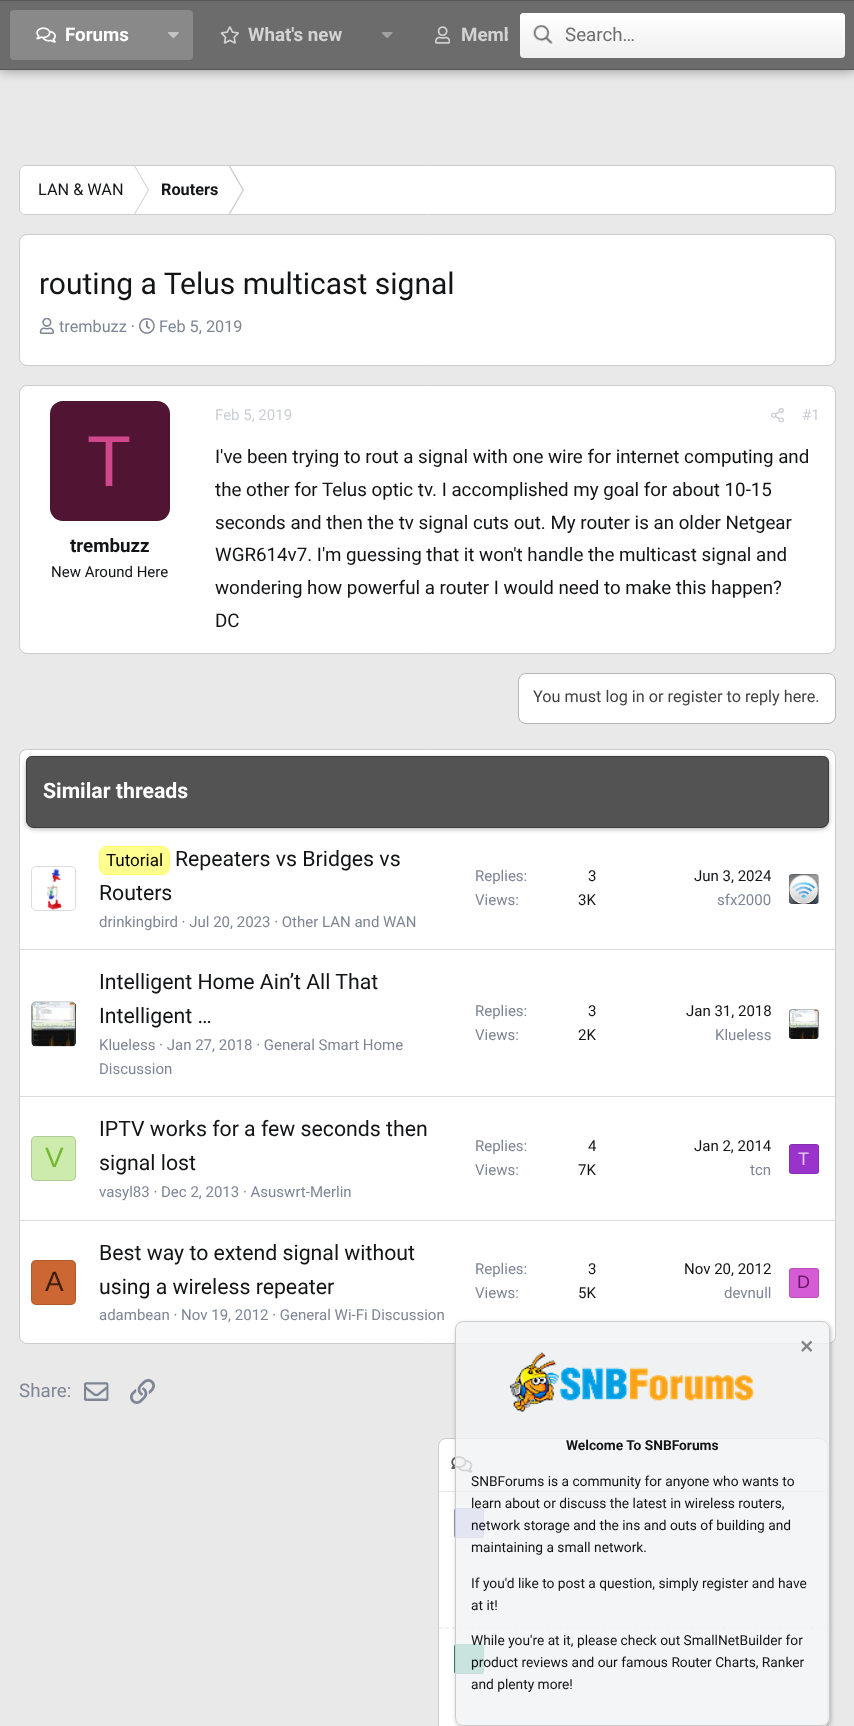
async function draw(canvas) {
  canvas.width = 854;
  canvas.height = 1726;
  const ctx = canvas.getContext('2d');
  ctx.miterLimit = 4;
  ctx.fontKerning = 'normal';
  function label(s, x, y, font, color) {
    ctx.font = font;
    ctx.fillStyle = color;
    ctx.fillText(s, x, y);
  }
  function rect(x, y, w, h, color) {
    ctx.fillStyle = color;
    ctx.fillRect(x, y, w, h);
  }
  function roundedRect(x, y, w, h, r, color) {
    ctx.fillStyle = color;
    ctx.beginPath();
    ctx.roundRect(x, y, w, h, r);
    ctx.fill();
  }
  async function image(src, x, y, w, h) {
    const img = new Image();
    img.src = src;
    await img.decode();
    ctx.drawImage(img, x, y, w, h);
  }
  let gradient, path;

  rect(0, 0, 854, 1726, '#e9e9e9');
  ctx.fillStyle = '#00000059';
  ctx.filter = 'blur(6px)';
  ctx.beginPath();
  ctx.rect(0, -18, 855, 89);
  ctx.fill();
  ctx.filter = 'none';
  rect(0, 1, 854, 68, '#6c6c6c');
  rect(0, 0, 854, 1, '#565656');
  rect(0, 69, 854, 1, '#565656');
  roundedRect(10, 10, 183, 50, 4, '#898989');
  await image('assets/img1.png', 36, 27, 20, 16);
  label('Forums', 65, 41, 'bold 18.75px Roboto', '#fff');
  await image('assets/img2.png', 168, 32, 11, 7);
  await image('assets/img3.png', 220, 26, 19, 18);
  label('What\'s new', 248, 41, 'bold 18.75px Roboto', '#d3d3d3');
  await image('assets/img4.png', 381, 32, 12, 6);
  await image('assets/img5.png', 435, 26, 15, 18);
  ctx.save();
  ctx.beginPath();
  ctx.rect(10, 10, 498, 50);
  ctx.clip();
  label('Memb', 461, 41, 'bold 18.75px Roboto', '#d3d3d3');
  ctx.restore();
  roundedRect(520, 13, 325, 45, 4, '#f0f0f0');
  gradient = ctx.createLinearGradient(683, 12, 683, 58);
  gradient.addColorStop(0, '#fff');
  gradient.addColorStop(1, '#ffffff00');
  ctx.fillStyle = gradient;
  ctx.beginPath();
  ctx.roundRect(520, 13, 325, 45, 4);
  ctx.fill();
  await image('assets/img6.png', 533, 25, 20, 19);
  label('Search…', 565, 41, '18.75px Roboto', '#6e6e6e');
  roundedRect(19, 165, 817, 50, 6, '#fff');
  ctx.fillStyle = '#ccc';
  path = new Path2D('M133.5 165H134.5L149 190H148ZM148 190H149L134.5 215H133.5Z');
  ctx.fill(path);
  path = new Path2D('M228 165H229.5L244 190H242.5ZM242.5 190H244L229.5 215H228Z');
  ctx.fill(path);
  ctx.beginPath();
  ctx.roundRect(19.5, 165.5, 816, 49, 5.5);
  ctx.strokeStyle = '#ccc';
  ctx.stroke();
  label('LAN & WAN', 38, 195, '16.25px Roboto', '#121416');
  label('Routers', 161, 195, 'bold 16.25px Roboto', '#121416');
  ctx.fillStyle = '#fff';
  ctx.beginPath();
  ctx.roundRect(19.5, 234.5, 816, 131, 7.5);
  ctx.fill();
  ctx.stroke();
  label('routing a Telus multicast signal', 39, 294, '30px Roboto', '#121416');
  await image('assets/img7.png', 39, 318, 15, 16);
  label('trembuzz ·', 59, 332, '16.25px Roboto', '#7e8595');
  await image('assets/img8.png', 139, 318, 16, 16);
  label('Feb 5, 2019', 159, 332, '16.25px Roboto', '#7e8595');
  ctx.fillStyle = '#fff';
  ctx.beginPath();
  ctx.roundRect(19.5, 385.5, 816, 268, 7.5);
  ctx.fill();
  ctx.stroke();
  roundedRect(50, 401, 120, 120, 13, '#521433');
  ctx.beginPath();
  ctx.roundRect(50.5, 401.5, 119, 119, 12.5);
  ctx.strokeStyle = '#12141626';
  ctx.stroke();
  label('T', 87, 486, '72px Liberation Sans', '#d1478c');
  label('trembuzz', 70, 552, 'bold 18.75px Roboto', '#121416');
  label('New Around Here', 51, 577, '15px Roboto', '#121416');
  label('Feb 5, 2019', 215, 420, '15px Roboto', '#cbced5');
  await image('assets/img9.png', 771, 408, 13, 15);
  label('#1', 802, 420, '15px Roboto', '#cbced5');
  label('I\'ve been trying to rout a signal with one wire for internet computing and', 215, 463, '18.75px Roboto', '#121416');
  label('the other for Telus optic tv. I accomplished my goal for about 10-15', 215, 496, '18.75px Roboto', '#121416');
  label('seconds and then the tv signal cuts out. My router is an older Netgear', 215, 529, '18.75px Roboto', '#121416');
  label('WGR614v7. I\'m guessing that it won\'t handle the multicast signal and', 215, 561, '18.75px Roboto', '#121416');
  label('wondering how powerful a router I would need to make this happen?', 215, 594, '18.75px Roboto', '#121416');
  label('DC', 215, 627, '18.75px Roboto', '#121416');
  ctx.fillStyle = '#fff';
  ctx.beginPath();
  ctx.roundRect(518.5, 673.5, 317, 50, 7.5);
  ctx.fill();
  ctx.strokeStyle = '#b5b5b5';
  ctx.stroke();
  label('You must log in or register to reply here.', 533, 702, '16.25px Roboto', '#424242');
  ctx.fillStyle = '#fff';
  ctx.beginPath();
  ctx.roundRect(19.5, 749.5, 816, 594, 7.5);
  ctx.fill();
  ctx.strokeStyle = '#ccc';
  ctx.stroke();
  ctx.fillStyle = '#0000004d';
  ctx.filter = 'blur(2.5px)';
  ctx.beginPath();
  ctx.roundRect(26, 758, 803, 71, 8);
  ctx.fill();
  ctx.filter = 'none';
  ctx.fillStyle = '#878787';
  ctx.beginPath();
  ctx.roundRect(26, 756, 803, 72, [6, 6, 8, 8]);
  ctx.fill();
  ctx.fillStyle = '#1f1f1f80';
  path = new Path2D('M32 756C29 756 26 759 26 762V820C26 824 30 828 34 828H821C825 828 829 824 829 820V762C829 759 826 756 823 756Z');
  ctx.fill(path);
  ctx.beginPath();
  ctx.roundRect(26.5, 756.5, 802, 71, [5.5, 5.5, 7.5, 7.5]);
  ctx.strokeStyle = '#0000004d';
  ctx.stroke();
  label('Similar threads', 43, 798, 'bold 21.25px Roboto', '#fff');
  await image('assets/img10.png', 47, 869, 15, 41);
  ctx.beginPath();
  ctx.roundRect(31.5, 866.5, 44, 44, 4.5);
  ctx.strokeStyle = '#dbdcdc';
  ctx.stroke();
  ctx.fillStyle = '#ffff8f';
  ctx.beginPath();
  ctx.roundRect(99.5, 846.5, 70, 28, 7.5);
  ctx.fill();
  ctx.strokeStyle = '#ffff5c';
  ctx.stroke();
  label('Tutorial', 106, 866, '17px Roboto', '#000');
  label('Repeaters vs Bridges vs', 175, 866, '21.25px Roboto', '#121416');
  label('Routers', 99, 900, '21.25px Roboto', '#121416');
  label('drinkingbird · Jul 20, 2023 · Other LAN and WAN', 99, 927, '15px Roboto', '#7e8595');
  label('Replies:', 475, 881, '15px Roboto', '#7e8595');
  label('3', 588, 881, '15px Roboto', '#121416');
  label('Views:', 475, 905, '15px Roboto', '#7e8595');
  label('3K', 578, 905, '15px Roboto', '#121416');
  label('Jun 3, 2024', 694, 881, '15px Roboto', '#121416');
  label('sfx2000', 717, 905, '15px Roboto', '#7e8595');
  await image('assets/img11.png', 789, 874, 30, 30);
  ctx.beginPath();
  ctx.roundRect(789.5, 874.5, 29, 29, 2.5);
  ctx.strokeStyle = '#12141626';
  ctx.stroke();
  rect(20, 949, 815, 1, '#dbdbdb');
  await image('assets/img12.png', 31, 1001, 45, 46);
  ctx.beginPath();
  ctx.roundRect(31.5, 1001.5, 44, 44, 4.5);
  ctx.stroke();
  label('Intelligent Home Ain’t All That', 99, 989, '21.25px Roboto', '#121416');
  label('Intelligent …', 99, 1023, '21.25px Roboto', '#121416');
  label('Klueless · Jan 27, 2018 · General Smart Home', 99, 1050, '15px Roboto', '#7e8595');
  label('Discussion', 99, 1074, '15px Roboto', '#7e8595');
  label('Replies:', 475, 1016, '15px Roboto', '#7e8595');
  label('3', 588, 1016, '15px Roboto', '#121416');
  label('Views:', 475, 1040, '15px Roboto', '#7e8595');
  label('2K', 578, 1040, '15px Roboto', '#121416');
  label('Jan 31, 2018', 686, 1016, '15px Roboto', '#121416');
  label('Klueless', 715, 1040, '15px Roboto', '#7e8595');
  await image('assets/img13.png', 789, 1009, 30, 30);
  ctx.beginPath();
  ctx.roundRect(789.5, 1009.5, 29, 29, 2.5);
  ctx.stroke();
  rect(20, 1096, 815, 1, '#dbdbdb');
  roundedRect(31, 1136, 45, 45, 5, '#ccebad');
  ctx.beginPath();
  ctx.roundRect(31.5, 1136.5, 44, 44, 4.5);
  ctx.stroke();
  label('V', 45, 1167, '28px Liberation Sans', '#73b82e');
  label('IPTV works for a few seconds then', 99, 1136, '21.25px Roboto', '#121416');
  label('signal lost', 99, 1170, '21.25px Roboto', '#121416');
  label('vasyl83 · Dec 2, 2013 · Asuswrt-Merlin', 99, 1197, '15px Roboto', '#7e8595');
  label('Replies:', 475, 1151, '15px Roboto', '#7e8595');
  label('4', 588, 1151, '15px Roboto', '#121416');
  label('Views:', 475, 1175, '15px Roboto', '#7e8595');
  label('7K', 578, 1175, '15px Roboto', '#121416');
  label('Jan 2, 2014', 694, 1151, '15px Roboto', '#121416');
  label('tcn', 750, 1175, '15px Roboto', '#7e8595');
  roundedRect(789, 1144, 30, 30, 3, '#93c');
  ctx.beginPath();
  ctx.roundRect(789.5, 1144.5, 29, 29, 2.5);
  ctx.stroke();
  label('T', 798, 1165, '18px Liberation Sans', '#e0c2f0');
  rect(20, 1220, 815, 1, '#dbdbdb');
  roundedRect(31, 1260, 45, 45, 5, '#c63');
  ctx.beginPath();
  ctx.roundRect(31.5, 1260.5, 44, 44, 4.5);
  ctx.stroke();
  label('A', 45, 1291, '28px Liberation Sans', '#3d1f0f');
  label('Best way to extend signal without', 99, 1260, '21.25px Roboto', '#121416');
  label('using a wireless repeater', 99, 1294, '21.25px Roboto', '#121416');
  label('adambean · Nov 19, 2012 · General Wi-Fi Discussion', 99, 1320, '15px Roboto', '#7e8595');
  label('Replies:', 475, 1274, '15px Roboto', '#7e8595');
  label('3', 588, 1274, '15px Roboto', '#121416');
  label('Views:', 475, 1298, '15px Roboto', '#7e8595');
  label('5K', 578, 1298, '15px Roboto', '#121416');
  label('Nov 20, 2012', 684, 1274, '15px Roboto', '#121416');
  label('devnull', 724, 1298, '15px Roboto', '#7e8595');
  roundedRect(789, 1268, 30, 30, 3, '#d65cd6');
  ctx.beginPath();
  ctx.roundRect(789.5, 1268.5, 29, 29, 2.5);
  ctx.stroke();
  label('D', 797, 1288, '18px Liberation Sans', '#661a66');
  label('Share:', 19, 1397, '18.75px Roboto', '#7e8595');
  await image('assets/img14.png', 84, 1382, 25, 19);
  await image('assets/img15.png', 130, 1379, 25, 25);
  ctx.fillStyle = '#fff';
  ctx.beginPath();
  ctx.roundRect(438.5, 1438.5, 389, 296, 7.5);
  ctx.fill();
  ctx.strokeStyle = '#ccc';
  ctx.stroke();
  rect(439, 1491, 387, 1, '#e7e8e8');
  await image('assets/img16.png', 451, 1456, 22, 17);
  path = new Path2D('M439 1628H826');
  ctx.strokeStyle = '#e7e8e8';
  ctx.lineWidth = 1.2;
  ctx.setLineDash([3.75, 2.54]);
  ctx.stroke(path);
  roundedRect(454, 1508, 30, 30, 3, '#adadeb');
  ctx.beginPath();
  ctx.roundRect(454.5, 1508.5, 29, 29, 2.5);
  ctx.strokeStyle = '#12141626';
  ctx.lineWidth = 1;
  ctx.setLineDash([]);
  ctx.stroke();
  roundedRect(454, 1644, 30, 30, 3, '#29a385');
  ctx.beginPath();
  ctx.roundRect(454.5, 1644.5, 29, 29, 2.5);
  ctx.stroke();
  ctx.save();
  path = new Path2D('M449 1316H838V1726H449ZM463 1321H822C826.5 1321 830 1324.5 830 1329V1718C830 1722.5 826.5 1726 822 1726H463C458.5 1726 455 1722.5 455 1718V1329C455 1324.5 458.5 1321 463 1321Z');
  ctx.clip(path, 'evenodd');
  ctx.fillStyle = '#00000040';
  ctx.filter = 'blur(2px)';
  ctx.beginPath();
  ctx.roundRect(456, 1323, 375, 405, 8);
  ctx.fill();
  ctx.filter = 'none';
  ctx.restore();
  ctx.fillStyle = '#f1f2f4cc';
  ctx.beginPath();
  ctx.roundRect(455.5, 1321.5, 374, 404, 7.5);
  ctx.fill();
  ctx.strokeStyle = '#ccc';
  ctx.stroke();
  await image('assets/img17.png', 801, 1340, 12, 12);
  await image('assets/img18.png', 509, 1352, 245, 60);
  label('Welcome To SNBForums', 566, 1450, 'bold 13.75px Roboto', '#121416');
  label('SNBForums is a community for anyone who wants to', 471, 1486, '13.75px Roboto', '#121416');
  label('learn about or discuss the latest in wireless routers,', 471, 1508, '13.75px Roboto', '#121416');
  label('network storage and the ins and outs of building and', 471, 1530, '13.75px Roboto', '#121416');
  label('maintaining a small network.', 471, 1552, '13.75px Roboto', '#121416');
  label('If you\'d like to post a question, simply register and have', 471, 1588, '13.75px Roboto', '#121416');
  label('at it!', 471, 1610, '13.75px Roboto', '#121416');
  label('While you\'re at it, please check out SmallNetBuilder for', 471, 1645, '13.75px Roboto', '#121416');
  label('product reviews and our famous Router Charts, Ranker', 471, 1667, '13.75px Roboto', '#121416');
  label('and plenty more!', 471, 1689, '13.75px Roboto', '#121416');
}

draw(document.querySelector('canvas'));
